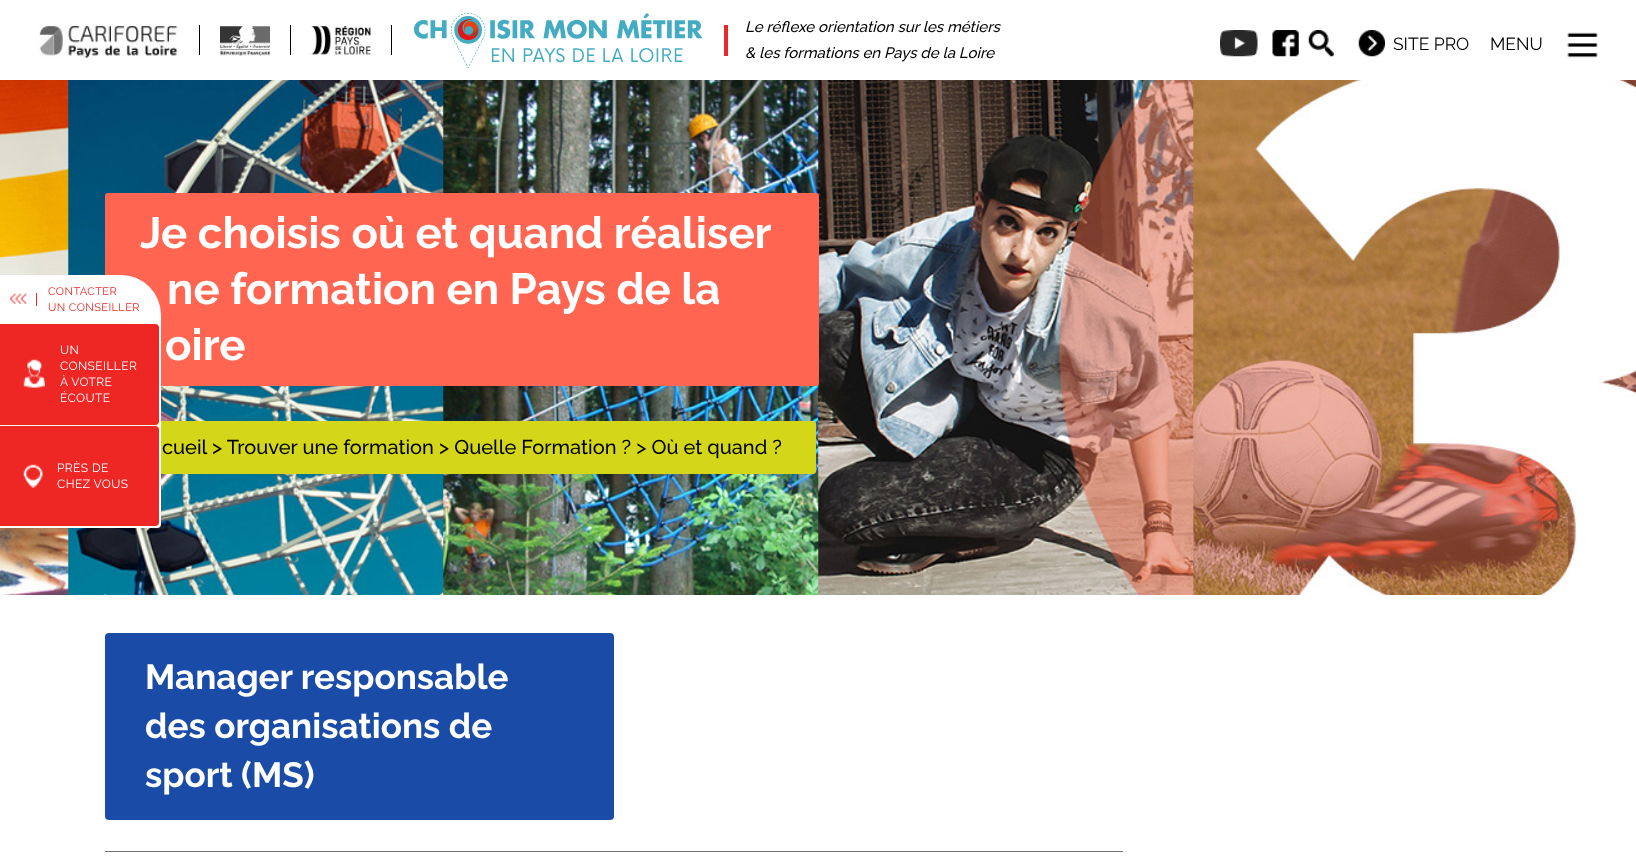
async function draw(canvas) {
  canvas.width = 1636;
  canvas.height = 868;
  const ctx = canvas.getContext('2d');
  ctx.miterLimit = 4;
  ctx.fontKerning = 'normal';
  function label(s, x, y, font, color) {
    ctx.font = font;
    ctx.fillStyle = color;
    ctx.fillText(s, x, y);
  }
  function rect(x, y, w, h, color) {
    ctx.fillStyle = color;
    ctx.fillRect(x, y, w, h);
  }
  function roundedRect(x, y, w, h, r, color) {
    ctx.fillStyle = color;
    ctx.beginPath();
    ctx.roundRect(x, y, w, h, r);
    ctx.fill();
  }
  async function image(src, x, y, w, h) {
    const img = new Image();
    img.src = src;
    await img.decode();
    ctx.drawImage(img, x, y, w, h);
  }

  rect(0, 0, 1636, 868, '#fff');
  await image('assets/img1.png', 39, 25, 139, 33);
  rect(199, 25, 1, 30, '#000');
  await image('assets/img2.png', 220, 26, 50, 30);
  rect(290, 25, 1, 30, '#000');
  await image('assets/img3.png', 311, 26, 60, 29);
  rect(391, 25, 1, 30, '#000');
  await image('assets/img4.png', 414, 13, 289, 56);
  rect(724, 25, 4, 31, '#ee2624');
  label('Le réflexe orientation sur les métiers', 745, 32, 'italic 500 15px Raleway', '#000');
  label('& les formations en Pays de la Loire', 745, 58, 'italic 500 15px Raleway', '#000');
  await image('assets/img5.png', 1220, 30, 38, 27);
  await image('assets/img6.png', 1272, 30, 27, 27);
  await image('assets/img7.png', 1308, 30, 26, 27);
  await image('assets/img8.png', 1358, 30, 27, 27);
  label('SITE PRO', 1393, 50, '17.5px Raleway', '#000');
  label('MENU', 1490, 50, '17.5px Raleway', '#000');
  await image('assets/img9.png', 1567, 32, 31, 26);
  await image('assets/img13.png', 0, 80, 1636, 515);
  roundedRect(105, 193, 714, 193, 3, '#ff6550');
  roundedRect(105, 421, 711, 53, 3, '#d4d61a');
  ctx.fillStyle = '#fff';
  ctx.beginPath();
  ctx.roundRect(0, 275, 161, 253, [0, 40, 4, 0]);
  ctx.fill();
  await image('assets/img10.png', 10, 293, 17, 11);
  rect(36, 293, 1, 13, '#ee2624');
  ctx.letterSpacing = '0.4px';
  label('CONTACTER', 48, 295, '11px Raleway', '#ee2624');
  label('UN CONSEILLER', 48, 311, '11px Raleway', '#ee2624');
  ctx.beginPath();
  ctx.roundRect(0, 324, 159, 101, [0, 4, 4, 0]);
  ctx.fill();
  await image('assets/img11.png', 23, 359, 22, 29);
  label('UN', 60, 354, '12px Raleway', '#fff');
  label('CONSEILLER', 60, 370, '12px Raleway', '#fff');
  label('À VOTRE', 60, 386, '12px Raleway', '#fff');
  label('ÉCOUTE', 60, 402, '12px Raleway', '#fff');
  ctx.fillStyle = '#ee2624';
  ctx.beginPath();
  ctx.roundRect(0, 426, 159, 100, [0, 4, 4, 0]);
  ctx.fill();
  await image('assets/img12.png', 23, 464, 20, 24);
  label('PRÈS DE', 57, 472, '12px Raleway', '#fff');
  label('CHEZ VOUS', 57, 488, '12px Raleway', '#fff');
  ctx.letterSpacing = '0px';
  label('Je choisis où et quand réaliser', 140, 248, 'bold 43.75px Raleway', '#fff');
  label('ne formation en Pays de la', 167, 304, 'bold 43.75px Raleway', '#fff');
  label('oire', 165, 360, 'bold 43.75px Raleway', '#fff');
  label('cueil', 162, 454, '500 20px Raleway', '#000');
  label('> Trouver une formation > Quelle Formation ? > Où et quand ?', 212, 454, '500 20px Raleway', '#000');
  rect(105, 851, 1018, 1, '#707070');
  roundedRect(105, 633, 509, 187, 4, '#1a4ca7');
  label('Manager responsable', 145, 689, 'bold 35px Raleway', '#fff');
  label('des organisations de', 145, 738, 'bold 35px Raleway', '#fff');
  label('sport (MS)', 145, 787, 'bold 35px Raleway', '#fff');
}

draw(document.querySelector('canvas'));
